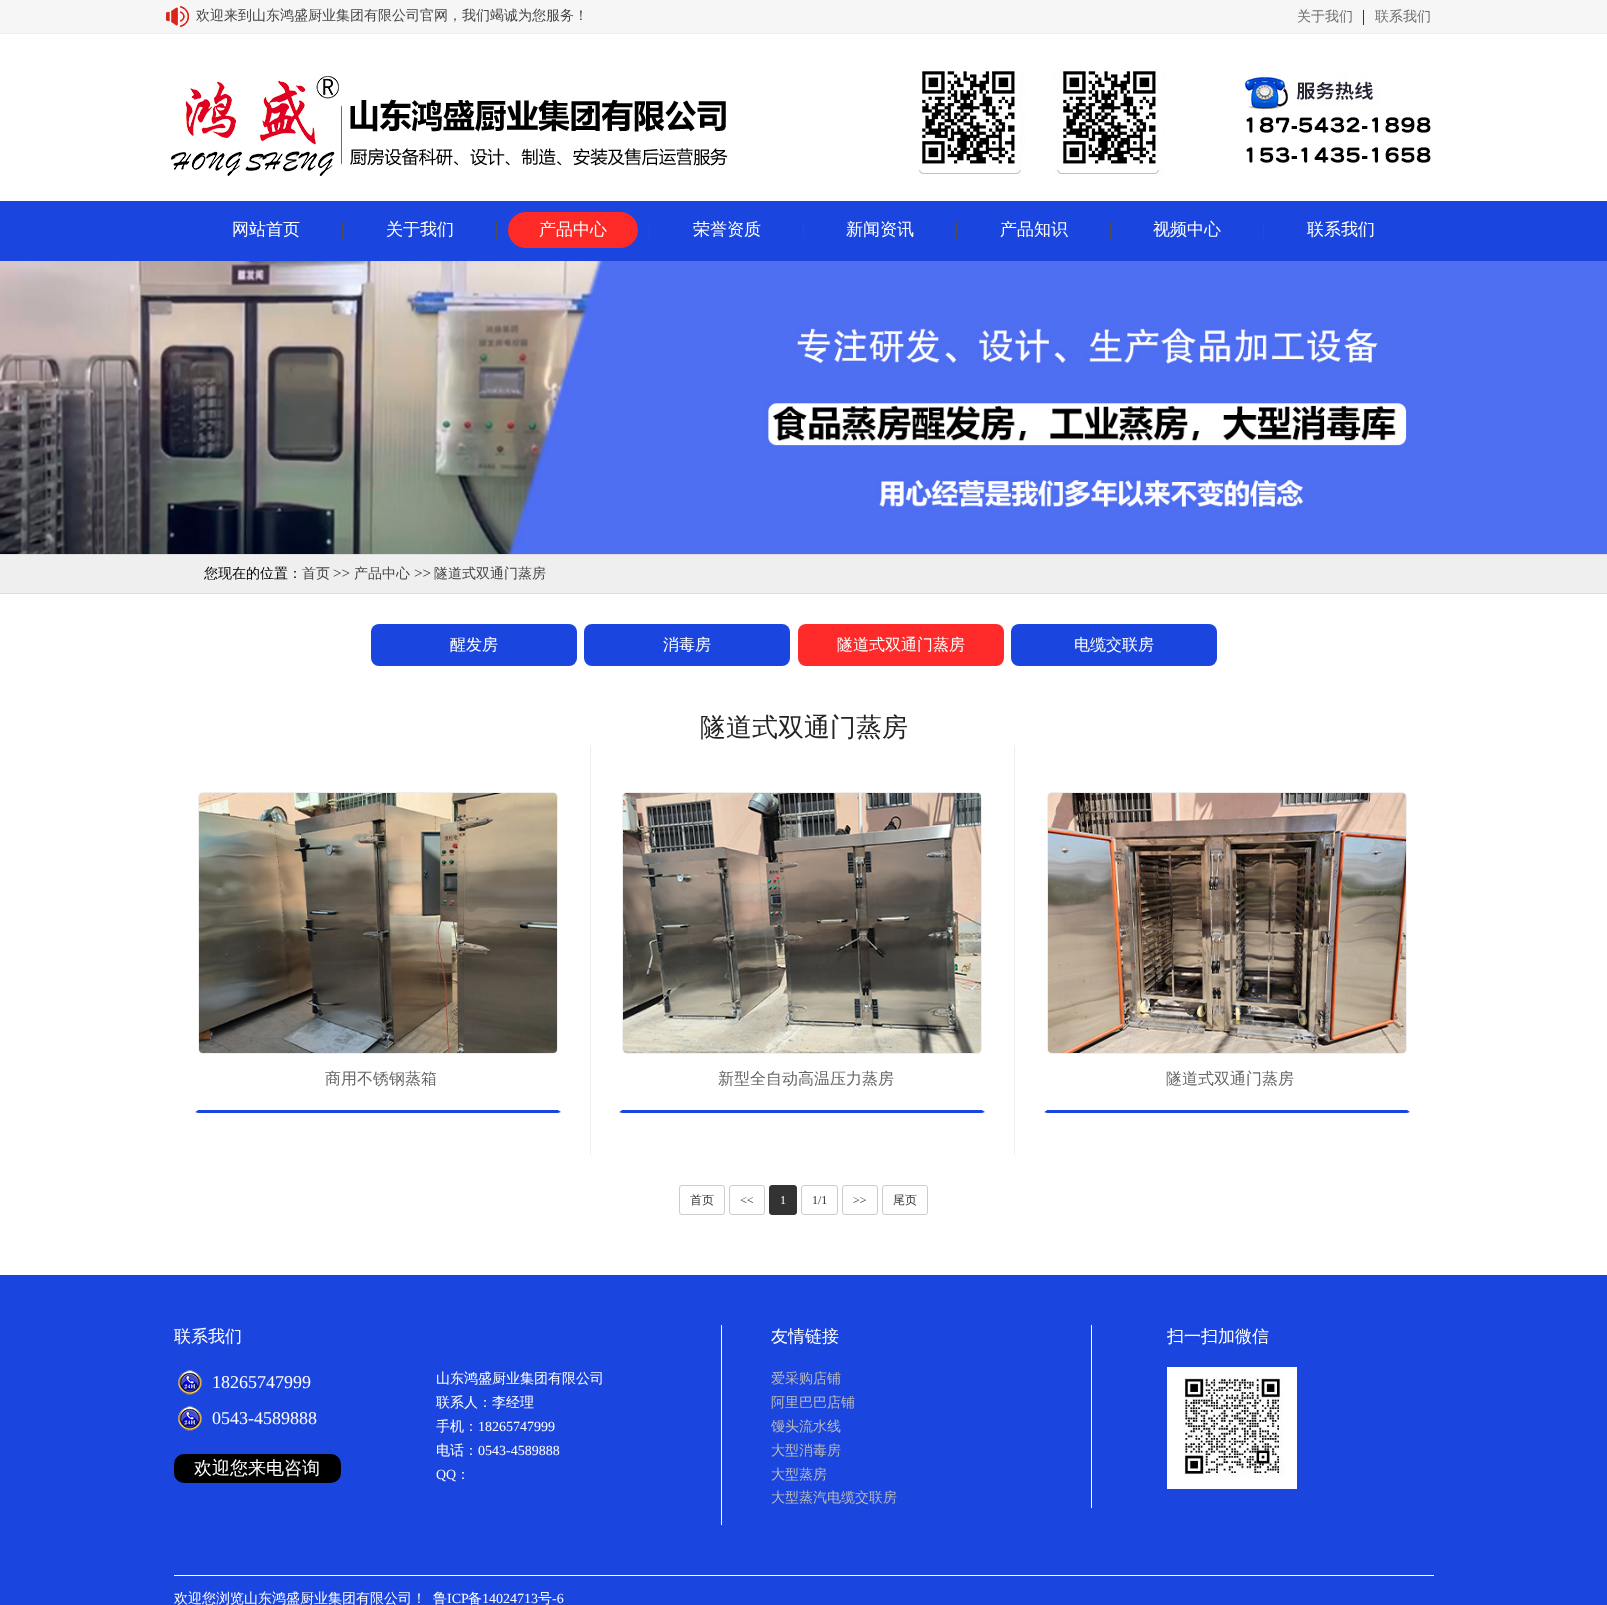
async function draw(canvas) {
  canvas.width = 1607;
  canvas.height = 1605;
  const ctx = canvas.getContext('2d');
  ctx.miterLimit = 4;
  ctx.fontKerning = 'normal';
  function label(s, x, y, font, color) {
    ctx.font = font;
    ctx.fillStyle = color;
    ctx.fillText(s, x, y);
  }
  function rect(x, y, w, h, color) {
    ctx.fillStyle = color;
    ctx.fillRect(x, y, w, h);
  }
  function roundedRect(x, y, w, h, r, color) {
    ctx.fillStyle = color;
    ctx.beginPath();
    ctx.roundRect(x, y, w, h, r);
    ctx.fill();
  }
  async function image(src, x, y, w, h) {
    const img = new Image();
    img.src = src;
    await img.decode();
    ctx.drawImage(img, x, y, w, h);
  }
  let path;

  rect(0, 0, 1607, 1605, '#fff');
  rect(0, 0, 1607, 33, '#f6f6f6');
  rect(0, 33, 1607, 1, '#eee');
  await image('assets/img1.png', 166, 0, 24, 31);
  label('欢迎来到山东鸿盛厨业集团有限公司官网，我们竭诚为您服务！', 196, 20, '500 14px WenQuanYi Zen Hei', '#444');
  rect(1363, 10, 1, 15, '#333');
  label('关于我们', 1297, 21, '500 14px WenQuanYi Zen Hei', '#6e6e6e');
  label('联系我们', 1375, 21, '500 14px WenQuanYi Zen Hei', '#6e6e6e');
  await image('assets/img2.png', 171, 76, 557, 100);
  await image('assets/img3.png', 917, 71, 514, 106);
  rect(0, 201, 1607, 60, '#1a45df');
  label('网站首页', 232, 235, '500 17px WenQuanYi Zen Hei', '#fff');
  rect(342, 222, 1, 17, '#505052');
  label('关于我们', 386, 235, '500 17px WenQuanYi Zen Hei', '#fff');
  rect(496, 222, 1, 17, '#505052');
  roundedRect(508, 212, 130, 36, 18, '#fe2a27');
  label('产品中心', 539, 235, '500 17px WenQuanYi Zen Hei', '#fff');
  rect(649, 222, 1, 17, '#505052');
  label('荣誉资质', 693, 235, '500 17px WenQuanYi Zen Hei', '#fff');
  rect(803, 222, 1, 17, '#505052');
  label('新闻资讯', 846, 235, '500 17px WenQuanYi Zen Hei', '#fff');
  rect(956, 222, 1, 17, '#505052');
  label('产品知识', 1000, 235, '500 17px WenQuanYi Zen Hei', '#fff');
  rect(1110, 222, 1, 17, '#505052');
  label('视频中心', 1153, 235, '500 17px WenQuanYi Zen Hei', '#fff');
  rect(1263, 222, 1, 17, '#505052');
  label('联系我们', 1307, 235, '500 17px WenQuanYi Zen Hei', '#fff');
  await image('assets/img4.png', 0, 261, 1607, 293);
  rect(0, 555, 1607, 38, '#efefef');
  rect(0, 554, 1607, 1, '#dfdede');
  rect(0, 593, 1607, 1, '#dfdede');
  label('您现在的位置：', 204, 578, '500 14px WenQuanYi Zen Hei', '#000');
  label('首页', 302, 578, '500 14px WenQuanYi Zen Hei', '#444');
  label('>>', 333, 578, '15px Liberation Serif', '#333');
  label('产品中心', 354, 578, '500 14px WenQuanYi Zen Hei', '#444');
  label('>>', 414, 578, '15px Liberation Serif', '#333');
  label('隧道式双通门蒸房', 434, 578, '500 14px WenQuanYi Zen Hei', '#444');
  roundedRect(371, 624, 206, 42, 8, '#1a45df');
  label('醒发房', 450, 650, '500 16px WenQuanYi Zen Hei', '#fff');
  roundedRect(584, 624, 206, 42, 8, '#1a45df');
  label('消毒房', 663, 650, '500 16px WenQuanYi Zen Hei', '#fff');
  roundedRect(798, 624, 206, 42, 8, '#ff2a2a');
  label('隧道式双通门蒸房', 837, 650, '500 16px WenQuanYi Zen Hei', '#fff');
  roundedRect(1011, 624, 206, 42, 8, '#1a45df');
  label('电缆交联房', 1074, 650, '500 16px WenQuanYi Zen Hei', '#fff');
  label('隧道式双通门蒸房', 700, 736, '500 26px WenQuanYi Zen Hei', '#232323');
  ctx.fillStyle = '#1a45df';
  path = new Path2D('M198 1113H558L561 1112L558 1110H198L195 1112Z');
  ctx.fill(path);
  ctx.fillStyle = '#fff';
  path = new Path2D('M198 792L194 788C194 789 193 790 193 792V1108C193 1110 194 1111 195 1112L198 1110Z');
  ctx.fill(path);
  ctx.beginPath();
  ctx.roundRect(198.5, 792.5, 359, 261, 4.5);
  ctx.strokeStyle = '#efefef';
  ctx.stroke();
  await image('assets/img5.png', 199, 793, 358, 260);
  label('商用不锈钢蒸箱', 325, 1084, '500 16px WenQuanYi Zen Hei', '#666');
  rect(590, 745, 1, 410, '#eee');
  ctx.fillStyle = '#1a45df';
  path = new Path2D('M622 1113H982L985 1112L982 1110H622L619 1112Z');
  ctx.fill(path);
  ctx.fillStyle = '#fff';
  path = new Path2D('M622 792L618 788C618 789 617 790 617 792V1108C617 1110 618 1111 619 1112L622 1110Z');
  ctx.fill(path);
  ctx.beginPath();
  ctx.roundRect(622.5, 792.5, 359, 261, 4.5);
  ctx.stroke();
  await image('assets/img6.png', 623, 793, 358, 260);
  label('新型全自动高温压力蒸房', 718, 1084, '500 16px WenQuanYi Zen Hei', '#666');
  rect(1014, 745, 1, 410, '#eee');
  ctx.fillStyle = '#1a45df';
  path = new Path2D('M1047 1113H1407L1410 1112L1407 1110H1047L1044 1112Z');
  ctx.fill(path);
  ctx.fillStyle = '#fff';
  path = new Path2D('M1047 792L1043 788C1042 789 1042 790 1042 792V1108C1042 1110 1043 1111 1044 1112L1047 1110Z');
  ctx.fill(path);
  ctx.beginPath();
  ctx.roundRect(1047.5, 792.5, 359, 261, 4.5);
  ctx.stroke();
  await image('assets/img7.png', 1048, 793, 358, 260);
  label('隧道式双通门蒸房', 1166, 1084, '500 16px WenQuanYi Zen Hei', '#666');
  ctx.beginPath();
  ctx.roundRect(679.5, 1185.5, 45, 29, 2.5);
  ctx.strokeStyle = '#ccc';
  ctx.stroke();
  label('首页', 690, 1204, '500 12px WenQuanYi Zen Hei', '#333');
  ctx.beginPath();
  ctx.roundRect(729.5, 1185.5, 35, 29, 2.5);
  ctx.stroke();
  label('<<', 740, 1204, '12px Liberation Serif', '#333');
  ctx.beginPath();
  ctx.roundRect(769.5, 1185.5, 27, 29, 2.5);
  ctx.fill();
  ctx.strokeStyle = '#333';
  ctx.stroke();
  label('1', 780, 1204, '12px Liberation Serif', '#fff');
  ctx.beginPath();
  ctx.roundRect(801.5, 1185.5, 36, 29, 2.5);
  ctx.strokeStyle = '#ccc';
  ctx.stroke();
  label('1/1', 812, 1204, '12px Liberation Serif', '#333');
  ctx.beginPath();
  ctx.roundRect(842.5, 1185.5, 35, 29, 2.5);
  ctx.stroke();
  label('>>', 853, 1204, '12px Liberation Serif', '#333');
  ctx.beginPath();
  ctx.roundRect(882.5, 1185.5, 45, 29, 2.5);
  ctx.stroke();
  label('尾页', 893, 1204, '500 12px WenQuanYi Zen Hei', '#333');
  rect(0, 1275, 1607, 330, '#1a45df');
  rect(721, 1325, 1, 200, '#fff');
  label('联系我们', 174, 1342, '500 17px WenQuanYi Zen Hei', '#fff');
  await image('assets/img8.png', 176, 1369, 26, 26);
  label('18265747999', 212, 1388, '18px Liberation Serif', '#fff');
  await image('assets/img8.png', 176, 1405, 26, 26);
  label('0543-4589888', 212, 1424, '18px Liberation Serif', '#fff');
  roundedRect(174, 1454, 167, 29, 10, '#000');
  label('欢迎您来电咨询', 194, 1474, '500 18px WenQuanYi Zen Hei', '#fff');
  label('山东鸿盛厨业集团有限公司', 436, 1383, '500 14px WenQuanYi Zen Hei', '#fff');
  ctx.save();
  ctx.beginPath();
  ctx.rect(436, 1367, 285, 119);
  ctx.clip();
  label('联系人：李经理', 436, 1407, '500 14px WenQuanYi Zen Hei', '#fff');
  ctx.restore();
  label('手机：', 436, 1431, '500 14px WenQuanYi Zen Hei', '#fff');
  label('18265747999', 478, 1431, '14px Liberation Serif', '#fff');
  label('电话：', 436, 1455, '500 14px WenQuanYi Zen Hei', '#fff');
  label('0543-4589888', 478, 1455, '14px Liberation Serif', '#fff');
  label('QQ', 436, 1479, '14px Liberation Serif', '#fff');
  label('：', 456, 1479, '500 14px WenQuanYi Zen Hei', '#fff');
  rect(1091, 1325, 1, 183, '#fff');
  label('友情链接', 771, 1342, '500 17px WenQuanYi Zen Hei', '#fff');
  label('爱采购店铺', 771, 1383, '500 14px WenQuanYi Zen Hei', '#b9babc');
  label('阿里巴巴店铺', 771, 1407, '500 14px WenQuanYi Zen Hei', '#b9babc');
  label('馒头流水线', 771, 1431, '500 14px WenQuanYi Zen Hei', '#b9babc');
  label('大型消毒房', 771, 1455, '500 14px WenQuanYi Zen Hei', '#b9babc');
  label('大型蒸房', 771, 1479, '500 14px WenQuanYi Zen Hei', '#b9babc');
  label('大型蒸汽电缆交联房', 771, 1502, '500 14px WenQuanYi Zen Hei', '#b9babc');
  label('扫一扫加微信', 1167, 1342, '500 17px WenQuanYi Zen Hei', '#fff');
  await image('assets/img9.png', 1167, 1367, 130, 122);
  rect(174, 1575, 1260, 1, '#fff');
  label('欢迎您浏览山东鸿盛厨业集团有限公司！', 174, 1603, '500 14px WenQuanYi Zen Hei', '#fff');
  label('鲁', 433, 1603, '500 14px WenQuanYi Zen Hei', '#fff');
  label('ICP', 447, 1603, '14px Liberation Serif', '#fff');
  label('备', 468, 1603, '500 14px WenQuanYi Zen Hei', '#fff');
  label('14024713', 482, 1603, '14px Liberation Serif', '#fff');
  label('号', 538, 1603, '500 14px WenQuanYi Zen Hei', '#fff');
  label('-6', 552, 1603, '14px Liberation Serif', '#fff');
}

draw(document.querySelector('canvas'));
